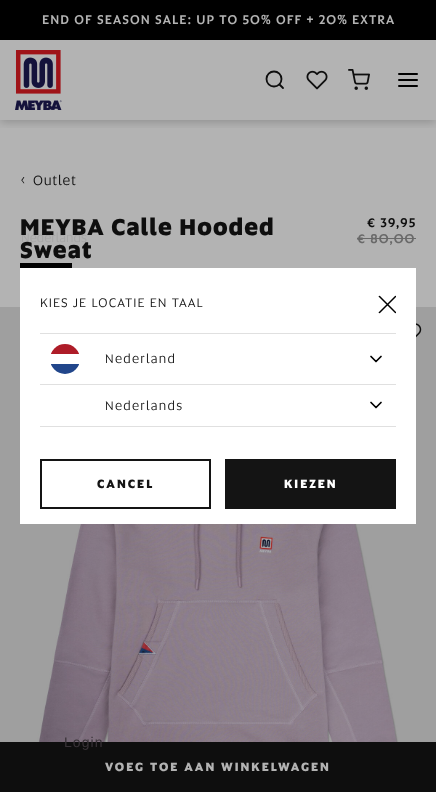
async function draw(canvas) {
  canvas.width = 436;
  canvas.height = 792;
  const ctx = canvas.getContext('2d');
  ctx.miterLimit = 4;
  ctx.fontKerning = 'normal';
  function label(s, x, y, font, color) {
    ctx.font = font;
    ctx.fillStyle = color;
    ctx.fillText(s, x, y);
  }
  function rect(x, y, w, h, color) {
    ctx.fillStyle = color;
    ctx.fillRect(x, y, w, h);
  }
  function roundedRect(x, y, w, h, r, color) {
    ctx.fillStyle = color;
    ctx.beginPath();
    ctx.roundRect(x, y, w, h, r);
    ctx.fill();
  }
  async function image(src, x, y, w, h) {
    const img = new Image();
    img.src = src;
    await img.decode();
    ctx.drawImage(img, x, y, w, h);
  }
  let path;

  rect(0, 0, 436, 792, '#b3b3b3');
  ctx.save();
  ctx.beginPath();
  ctx.rect(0, 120, 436, 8);
  ctx.clip();
  ctx.fillStyle = '#00000033';
  ctx.filter = 'blur(5px)';
  ctx.beginPath();
  ctx.rect(0, 2, 436, 120);
  ctx.fill();
  ctx.filter = 'none';
  ctx.restore();
  rect(0, 0, 436, 40, '#000');
  ctx.letterSpacing = '1.05px';
  label('END OF SEASON SALE: UP TO 50% OFF + 20% EXTRA', 42, 24, '500 13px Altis', '#b3b3b3');
  await image('assets/img1.png', 15, 50, 47, 60);
  ctx.beginPath();
  ctx.arc(274, 79, 7.5, 0, 2 * Math.PI);
  ctx.strokeStyle = '#0e0e0e';
  ctx.lineWidth = 1.8;
  ctx.stroke();
  path = new Path2D('M283 88L279.5 84.5');
  ctx.lineCap = 'round';
  ctx.lineJoin = 'round';
  ctx.stroke(path);
  await image('assets/img2.png', 306, 70, 22, 20);
  await image('assets/img3.png', 348, 69, 22, 21);
  roundedRect(398, 79, 20, 2, 1, '#000');
  roundedRect(398, 73, 20, 2, 1, '#000');
  roundedRect(398, 85, 20, 2, 1, '#000');
  ctx.letterSpacing = '0px';
  label('Nederlands', 21, 242, '13px Altis', '#a6a6a6');
  await image('assets/img4.png', 0, 307, 436, 435);
  rect(0, 742, 436, 50, '#0e0e0e');
  ctx.letterSpacing = '1.05px';
  label('Login', 64, 747, '14px Liberation Sans', '#383237');
  ctx.font = '13px Altis';
  ctx.fillStyle = '#0e0e0e';
  ctx.save();
  ctx.translate(25, 177);
  ctx.rotate(180 * Math.PI / 180);
  ctx.fillText('›', 0, 0);
  ctx.restore();
  ctx.letterSpacing = '0.75px';
  label('Outlet', 33, 185, '14px Altis', '#0e0e0e');
  ctx.letterSpacing = '1.05px';
  label('MEYBA Calle Hooded', 20, 235, '800 23px Altis', '#0e0e0e');
  label('Sweat', 20, 258, '800 23px Altis', '#0e0e0e');
  rect(20, 263, 52, 5, '#000');
  label('€ 39,95', 367, 227, '500 13px Altis', '#0e0e0e');
  label('€ 80,00', 357, 243, '500 13px Altis', '#696969');
  rect(357, 238, 59, 1, '#696969');
  await image('assets/img5.png', 416, 323, 6, 15);
  rect(20, 268, 396, 256, '#fff');
  label('KIES JE LOCATIE EN TAAL', 40, 307, '13px Altis', '#141414');
  ctx.save();
  path = new Path2D('M378 313.5V295.5H396V313.5Z');
  ctx.clip(path);
  path = new Path2D('M379 313L396 296M396 313L379 296');
  ctx.strokeStyle = '#000';
  ctx.lineWidth = 1.5;
  ctx.lineCap = 'butt';
  ctx.lineJoin = 'miter';
  ctx.stroke(path);
  ctx.restore();
  rect(40, 333, 356, 1, '#e0e0e0');
  rect(40, 384, 356, 1, '#e0e0e0');
  ctx.save();
  ctx.beginPath();
  ctx.roundRect(50, 344, 30, 30, 15);
  ctx.clip();
  rect(51, 364, 28, 10, '#21468b');
  rect(51, 344, 28, 10, '#ae1c28');
  ctx.restore();
  ctx.letterSpacing = '1.25px';
  label('Nederland', 105, 363, '13px Altis', '#141414');
  path = new Path2D('M371 356.5L376 361.5L381 356.5');
  ctx.strokeStyle = '#000';
  ctx.lineWidth = 1.7;
  ctx.stroke(path);
  rect(40, 426, 356, 1, '#e0e0e0');
  label('Nederlands', 105, 410, '13px Altis', '#141414');
  path = new Path2D('M371 402.5L376 407.5L381 402.5');
  ctx.stroke(path);
  ctx.strokeStyle = '#141414';
  ctx.lineWidth = 2;
  ctx.lineJoin = 'miter';
  ctx.strokeRect(41, 460, 169, 48);
  ctx.letterSpacing = '2px';
  label('CANCEL', 97, 488, '800 12px Altis', '#141414');
  rect(225, 459, 171, 50, '#141414');
  label('KIEZEN', 284, 488, '800 12px Altis', '#fff');
  label('VOEG TOE AAN WINKELWAGEN', 105, 771, '800 12px Altis', '#b3b3b3');
}

draw(document.querySelector('canvas'));
